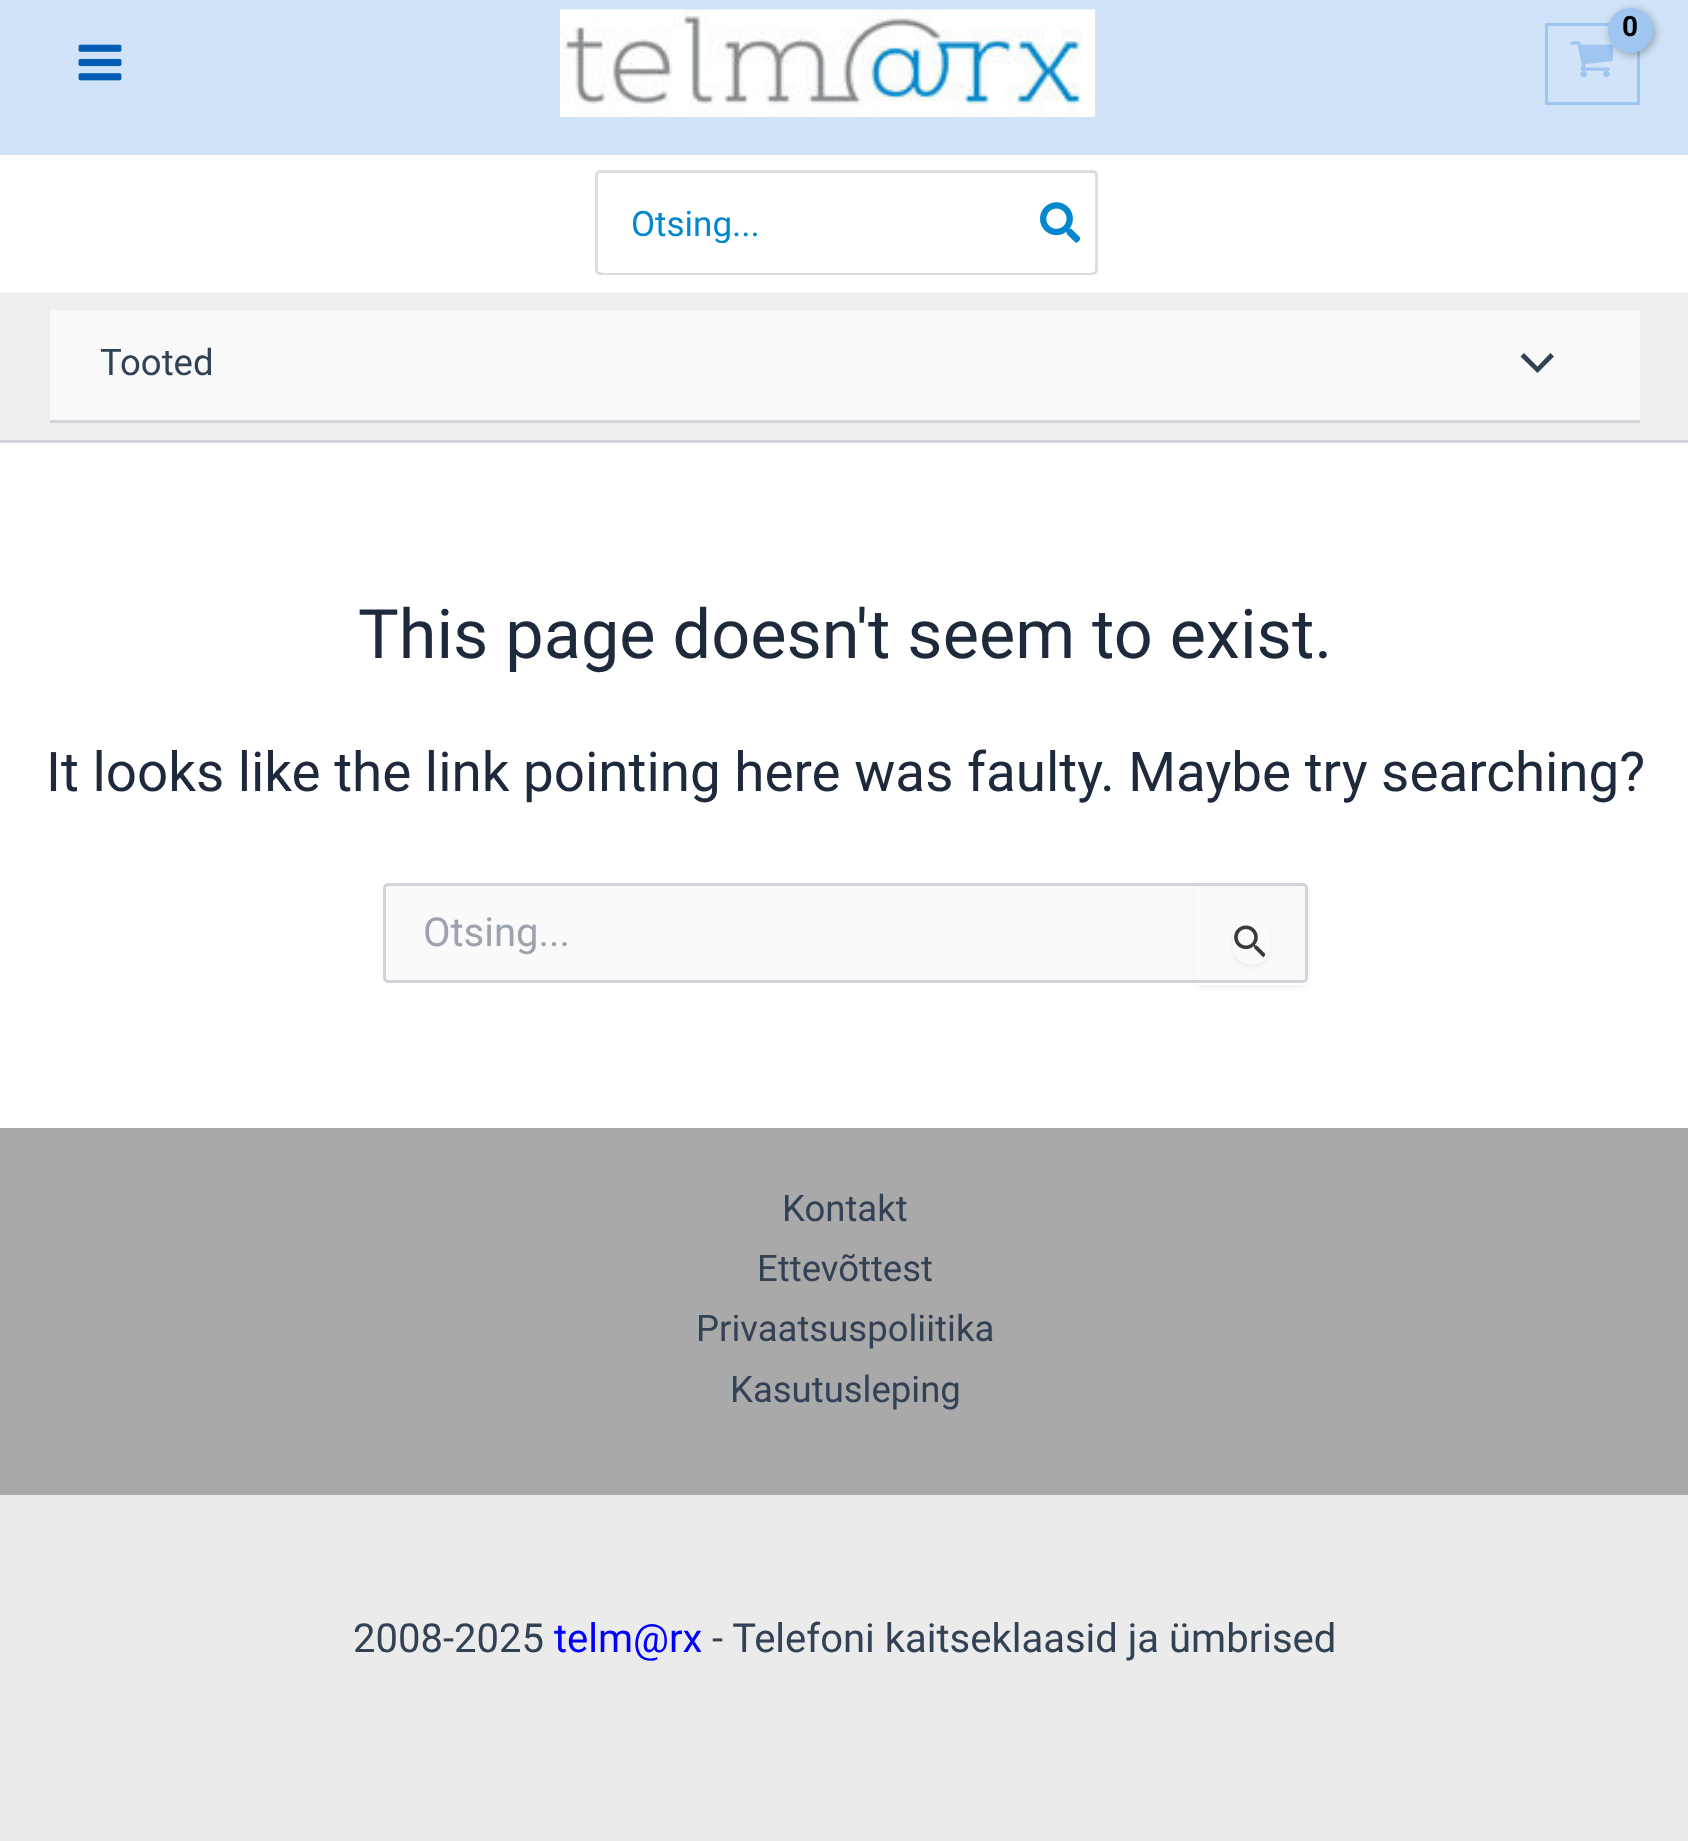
async function draw(canvas) {
  canvas.width = 1688;
  canvas.height = 1841;
  const ctx = canvas.getContext('2d');
  ctx.miterLimit = 4;
  ctx.fontKerning = 'normal';
  function label(s, x, y, font, color) {
    ctx.font = font;
    ctx.fillStyle = color;
    ctx.fillText(s, x, y);
  }
  function rect(x, y, w, h, color) {
    ctx.fillStyle = color;
    ctx.fillRect(x, y, w, h);
  }
  function roundedRect(x, y, w, h, r, color) {
    ctx.fillStyle = color;
    ctx.beginPath();
    ctx.roundRect(x, y, w, h, r);
    ctx.fill();
  }
  async function image(src, x, y, w, h) {
    const img = new Image();
    img.src = src;
    await img.decode();
    ctx.drawImage(img, x, y, w, h);
  }
  let path;

  rect(0, 0, 1688, 1841, '#fff');
  rect(0, 0, 1688, 155, '#d0e3f8');
  await image('assets/img1.png', 560, 9, 535, 108);
  ctx.strokeStyle = '#9fc6f1';
  ctx.lineWidth = 3;
  ctx.strokeRect(1546.5, 24.5, 92, 79);
  await image('assets/img2.png', 1570, 41, 43, 37);
  ctx.fillStyle = '#0000004d';
  ctx.filter = 'blur(4px)';
  ctx.beginPath();
  ctx.roundRect(1610, 10, 45, 45, 22.5);
  ctx.fill();
  ctx.filter = 'none';
  ctx.fillStyle = '#9fc6f1';
  ctx.beginPath();
  ctx.arc(1630.5, 30.5, 22.5, 0, 2 * Math.PI);
  ctx.fill();
  ctx.letterSpacing = '-1px';
  label('0', 1622, 36, 'bold 28px Roboto', '#000');
  await image('assets/img3.png', 78, 44, 44, 37);
  ctx.beginPath();
  ctx.roundRect(596.5, 171.5, 500, 102, 3.5);
  ctx.strokeStyle = '#ddd';
  ctx.stroke();
  roundedRect(598, 173, 497, 100, 5, '#fff');
  ctx.save();
  ctx.beginPath();
  ctx.rect(633, 203, 382, 40);
  ctx.clip();
  ctx.letterSpacing = '0px';
  label('Otsing...', 631, 236, '35px Roboto', '#0288cf');
  ctx.restore();
  await image('assets/img4.png', 1040, 202, 40, 41);
  rect(0, 293, 1688, 147, '#eee');
  rect(0, 440, 1688, 3, '#d1d5db');
  rect(50, 310, 1590, 110, '#f9f9f9');
  rect(50, 420, 1590, 3, '#d1d5db');
  ctx.letterSpacing = '0px';
  label('Tooted', 100, 375, '36.5px Roboto', '#334155');
  path = new Path2D('M1520.5 356.5L1537.5 373L1554 356.5L1550.5 353L1537.5 366.5L1524 353Z');
  ctx.fill(path);
  label('This page doesn\'t seem to exist.', 358, 658, '68.4px Roboto', '#1e293b');
  label('It looks like the link pointing here was faulty. Maybe try searching?', 46, 791, '54.75px Roboto', '#1e293b');
  ctx.fillStyle = '#fafafa';
  ctx.beginPath();
  ctx.roundRect(384.5, 884.5, 922, 97, 3.5);
  ctx.fill();
  ctx.strokeStyle = '#d1d5db';
  ctx.stroke();
  label('Otsing...', 423, 946, '40px Roboto', '#9ca3af');
  ctx.save();
  path = new Path2D('M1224 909H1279V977H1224ZM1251.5 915C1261.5 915 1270 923.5 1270 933.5V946.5C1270 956.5 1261.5 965 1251.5 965C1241.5 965 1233 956.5 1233 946.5V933.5C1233 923.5 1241.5 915 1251.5 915Z');
  ctx.clip(path, 'evenodd');
  ctx.fillStyle = '#0000000d';
  ctx.filter = 'blur(2.5px)';
  ctx.beginPath();
  ctx.roundRect(1233, 918, 37, 50, 18.5);
  ctx.fill();
  ctx.filter = 'none';
  ctx.restore();
  await image('assets/img5.png', 1234, 925, 31, 33);
  ctx.save();
  path = new Path2D('M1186 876H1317V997H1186ZM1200 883H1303C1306 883 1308 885 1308 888V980C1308 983 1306 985 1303 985H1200C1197 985 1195 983 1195 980V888C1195 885 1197 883 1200 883Z');
  ctx.clip(path, 'evenodd');
  ctx.fillStyle = '#0000000d';
  ctx.filter = 'blur(2.5px)';
  ctx.beginPath();
  ctx.roundRect(1195, 885, 113, 103, 5);
  ctx.fill();
  ctx.filter = 'none';
  ctx.restore();
  rect(0, 1128, 1688, 367, '#a9a9aa');
  label('Kontakt', 782, 1221, '36.5px Roboto', '#334155');
  label('Ettevõttest', 757, 1281, '36.5px Roboto', '#334155');
  label('Privaatsuspoliitika', 696, 1341, '36.5px Roboto', '#334155');
  label('Kasutusleping', 730, 1402, '36.5px Roboto', '#334155');
  rect(0, 1495, 1688, 346, '#ebebeb');
  label('2008-2025', 353, 1652, '40px Roboto', '#334155');
  label('telm@rx', 554, 1652, '40px Roboto', '#00f');
  label('- Telefoni kaitseklaasid ja ümbrised', 712, 1652, '40px Roboto', '#334155');
}

draw(document.querySelector('canvas'));
